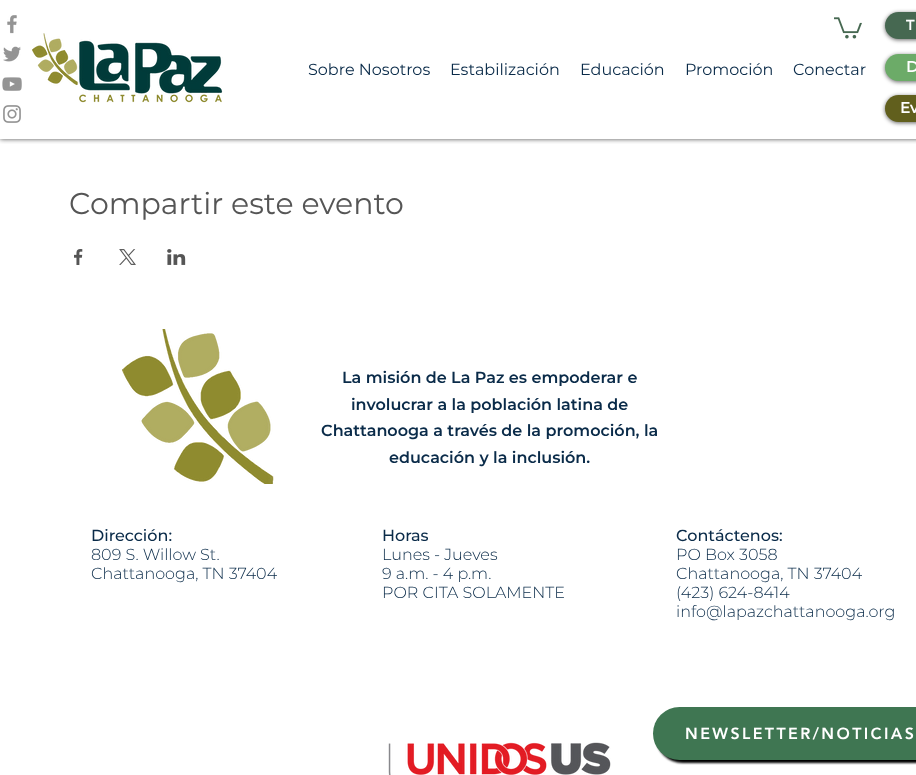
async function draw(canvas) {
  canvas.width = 916;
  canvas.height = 775;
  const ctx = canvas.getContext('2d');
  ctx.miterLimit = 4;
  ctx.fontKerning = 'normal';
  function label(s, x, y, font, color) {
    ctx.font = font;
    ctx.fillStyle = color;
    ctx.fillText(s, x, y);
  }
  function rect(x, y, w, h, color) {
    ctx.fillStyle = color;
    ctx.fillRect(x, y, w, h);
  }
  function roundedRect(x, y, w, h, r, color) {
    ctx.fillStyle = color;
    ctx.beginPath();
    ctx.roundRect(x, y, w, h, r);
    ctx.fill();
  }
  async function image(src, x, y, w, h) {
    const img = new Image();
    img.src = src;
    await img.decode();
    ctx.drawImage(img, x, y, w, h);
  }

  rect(0, 0, 916, 775, '#fff');
  ctx.save();
  ctx.beginPath();
  ctx.rect(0, 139, 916, 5);
  ctx.clip();
  ctx.fillStyle = '#000000b3';
  ctx.filter = 'blur(2.5px)';
  ctx.beginPath();
  ctx.rect(0, 0, 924, 139);
  ctx.fill();
  ctx.filter = 'none';
  ctx.restore();
  await image('assets/img1.png', 7, 15, 10, 19);
  await image('assets/img2.png', 3, 46, 18, 16);
  await image('assets/img3.png', 2, 77, 20, 14);
  await image('assets/img4.png', 3, 105, 18, 18);
  await image('assets/img5.png', 834, 17, 28, 22);
  ctx.fillStyle = '#00000099';
  ctx.filter = 'blur(2px)';
  ctx.beginPath();
  ctx.roundRect(885, 13, 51, 27, 13.5);
  ctx.fill();
  ctx.filter = 'none';
  roundedRect(885, 12, 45, 27, 13.5, '#466851');
  label('T', 906, 30, 'bold 14px Montserrat', '#fff');
  await image('assets/img6.png', 32, 33, 191, 70);
  label('Sobre Nosotros', 308, 75, '16px Montserrat', '#0a2b49');
  label('Estabilización', 450, 75, '16px Montserrat', '#0a2b49');
  label('Educación', 580, 75, '16px Montserrat', '#0a2b49');
  label('Promoción', 685, 75, '16px Montserrat', '#0a2b49');
  label('Conectar', 793, 75, '16px Montserrat', '#0a2b49');
  ctx.fillStyle = '#00000099';
  ctx.filter = 'blur(2px)';
  ctx.beginPath();
  ctx.roundRect(885, 55, 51, 27, 13.5);
  ctx.fill();
  ctx.filter = 'none';
  roundedRect(885, 54, 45, 27, 13.5, '#6cab68');
  label('D', 906, 72, 'bold 15px Montserrat', '#fff');
  ctx.fillStyle = '#00000099';
  ctx.filter = 'blur(2px)';
  ctx.beginPath();
  ctx.roundRect(885, 96, 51, 27, 13.5);
  ctx.fill();
  ctx.filter = 'none';
  roundedRect(885, 95, 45, 27, 13.5, '#615f1d');
  label('Ev', 900, 113, 'bold 15px Montserrat', '#fff');
  label('Compartir este evento', 69, 214, '30px Montserrat', '#555');
  await image('assets/img7.png', 74, 249, 9, 16);
  await image('assets/img8.png', 119, 249, 17, 16);
  await image('assets/img9.png', 167, 249, 19, 16);
  await image('assets/img10.png', 122, 329, 152, 155);
  label('La misión de La Paz es empoderar e', 342, 383, '600 16px Montserrat', '#0a2b49');
  label('involucrar a la población latina de', 351, 410, '600 16px Montserrat', '#0a2b49');
  label('Chattanooga a través de la promoción, la', 321, 436, '600 16px Montserrat', '#0a2b49');
  label('educación y la inclusión.', 389, 463, '600 16px Montserrat', '#0a2b49');
  label('Dirección:', 91, 541, '500 16px Montserrat', '#0a2b49');
  label('809 S. Willow St.', 91, 560, '300 16px Montserrat', '#0a2b49');
  label('Chattanooga, TN 37404', 91, 579, '300 16px Montserrat', '#0a2b49');
  label('Horas', 382, 541, '500 16px Montserrat', '#0a2b49');
  label('Lunes - Jueves', 382, 560, '300 16px Montserrat', '#0a2b49');
  label('9 a.m. - 4 p.m.', 382, 579, '300 16px Montserrat', '#0a2b49');
  label('POR CITA SOLAMENTE', 382, 598, '300 16px Montserrat', '#0a2b49');
  label('Contáctenos:', 676, 541, '500 16px Montserrat', '#0a2b49');
  label('PO Box 3058', 676, 560, '300 16px Montserrat', '#0a2b49');
  label('Chattanooga, TN 37404', 676, 579, '300 16px Montserrat', '#0a2b49');
  label('(423) 624-8414', 676, 598, '300 16px Montserrat', '#0a2b49');
  label('info@lapazchattanooga.org', 676, 617, '300 16px Montserrat', '#0a2b49');
  ctx.fillStyle = '#000';
  ctx.filter = 'blur(1px)';
  ctx.beginPath();
  ctx.roundRect(656, 710, 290, 53, 26.5);
  ctx.fill();
  ctx.filter = 'none';
  roundedRect(653, 707, 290, 53, 26.5, '#3f7652');
  ctx.letterSpacing = '2.4px';
  label('NEWSLETTER/NOTICIAS', 685, 739, '900 16px "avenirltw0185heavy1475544"', '#fff');
  await image('assets/img11.png', 388, 742, 223, 33);
}

draw(document.querySelector('canvas'));
